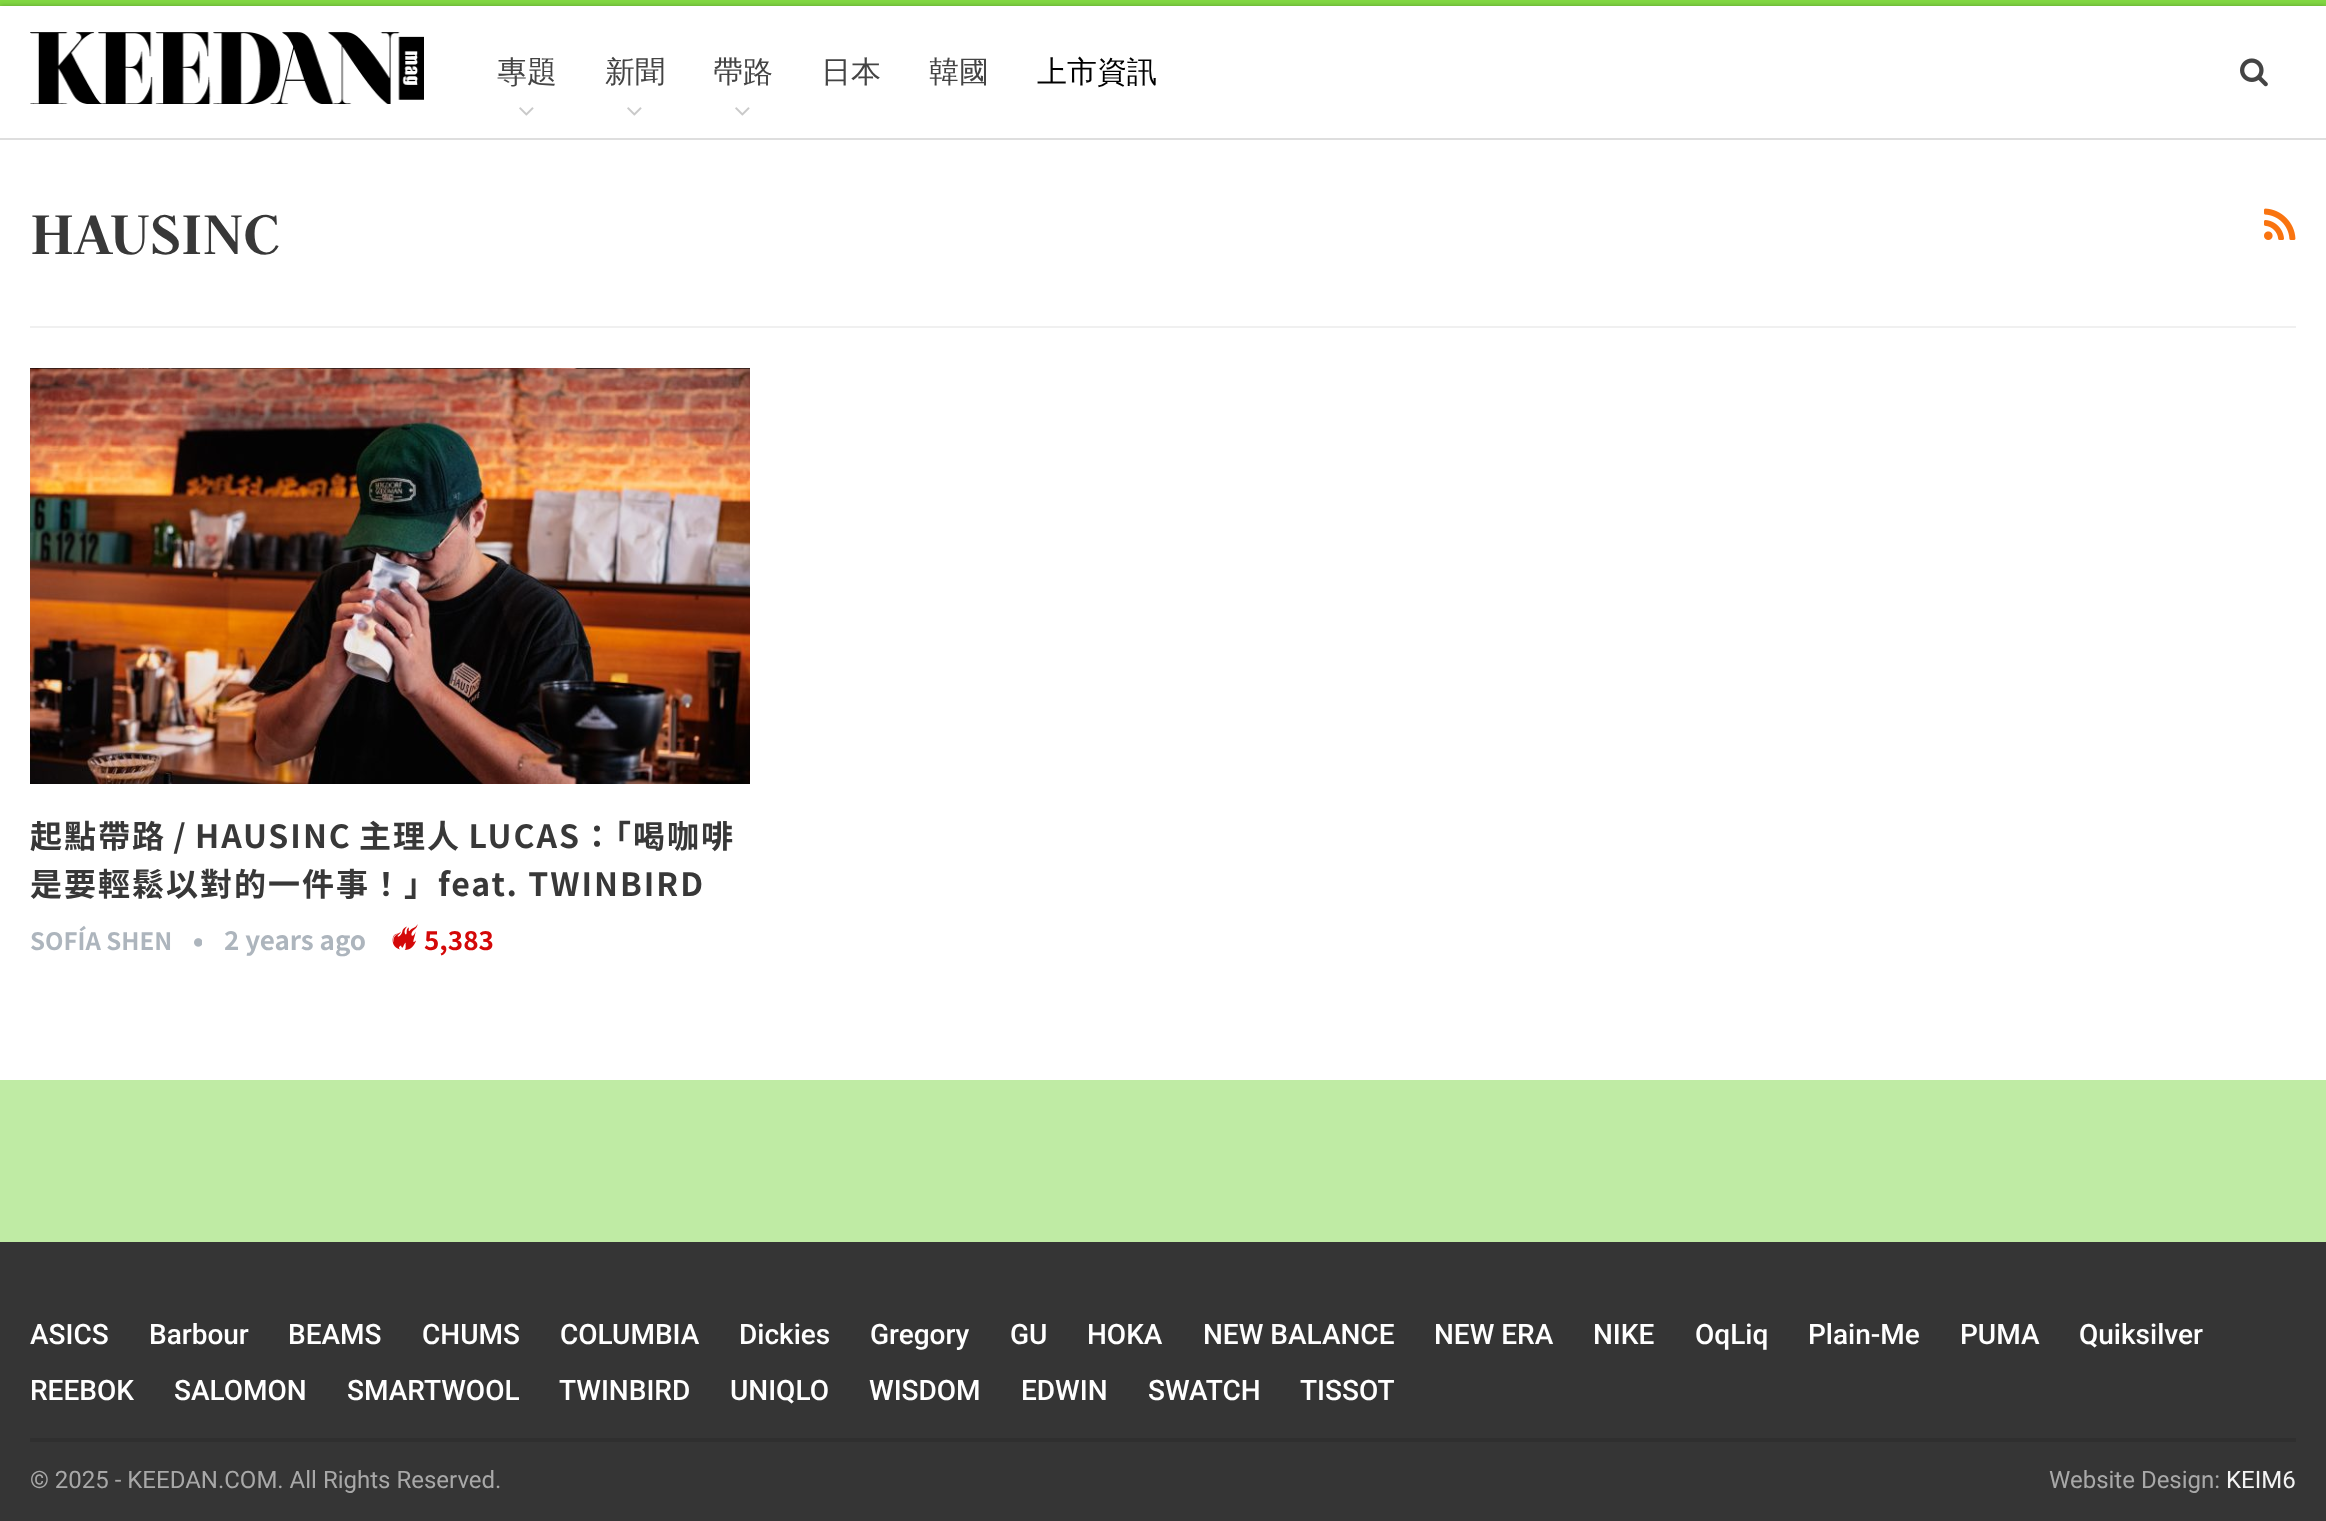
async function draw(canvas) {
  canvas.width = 2326;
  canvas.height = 1521;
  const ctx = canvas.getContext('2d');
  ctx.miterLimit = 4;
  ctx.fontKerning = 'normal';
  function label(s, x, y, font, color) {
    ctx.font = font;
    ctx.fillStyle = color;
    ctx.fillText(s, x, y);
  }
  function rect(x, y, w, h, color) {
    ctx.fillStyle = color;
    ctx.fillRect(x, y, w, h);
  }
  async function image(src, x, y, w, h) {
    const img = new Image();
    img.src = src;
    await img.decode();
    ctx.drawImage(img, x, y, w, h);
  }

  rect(0, 0, 2326, 1521, '#81d742');
  ctx.fillStyle = '#00000045';
  ctx.filter = 'blur(2px)';
  ctx.beginPath();
  ctx.rect(0, 6, 2326, 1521);
  ctx.fill();
  ctx.filter = 'none';
  rect(0, 6, 2326, 1074, '#fff');
  rect(0, 138, 2326, 2, '#dedede');
  await image('assets/img1.png', 30, 32, 394, 72);
  label('專題', 497, 82, '500 30px WenQuanYi Zen Hei', '#444');
  await image('assets/img2.png', 519, 107, 15, 9);
  label('新聞', 605, 82, '500 30px WenQuanYi Zen Hei', '#444');
  await image('assets/img2.png', 627, 107, 15, 9);
  label('帶路', 713, 82, '500 30px WenQuanYi Zen Hei', '#444');
  await image('assets/img2.png', 735, 107, 15, 9);
  label('日本', 821, 82, '500 30px WenQuanYi Zen Hei', '#444');
  label('韓國', 929, 82, '500 30px WenQuanYi Zen Hei', '#444');
  label('上市資訊', 1037, 82, '500 30px WenQuanYi Zen Hei', '#000');
  await image('assets/img3.png', 2240, 58, 28, 29);
  rect(30, 326, 2266, 2, '#f0f0f0');
  label('HAUSINC', 30, 254, 'bold 66px Judson', '#383838');
  await image('assets/img4.png', 2264, 208, 32, 32);
  await image('assets/img5.png', 30, 368, 720, 416);
  ctx.letterSpacing = '2px';
  ctx.wordSpacing = '-2px';
  label('起點帶路 / HAUSINC 主理人 LUCAS：「喝咖啡', 30, 848, 'bold 32px Noto Sans TC', '#383838');
  ctx.wordSpacing = '0px';
  label('是要輕鬆以對的一件事！」feat. TWINBIRD', 30, 896, 'bold 32px Noto Sans TC', '#383838');
  ctx.letterSpacing = '0px';
  label('SOFÍA SHEN', 30, 950, 'bold 24px Noto Sans TC', '#adb5bd');
  await image('assets/img6.png', 194, 938, 8, 9);
  label('2 years ago', 224, 950, 'bold 26px Noto Sans TC', '#adb5bd');
  await image('assets/img7.png', 392, 924, 26, 26);
  label('5,383', 424, 950, 'bold 26px Noto Sans TC', '#d40808');
  rect(0, 1080, 2326, 162, '#bfeba4');
  rect(0, 1242, 2326, 279, '#353535');
  rect(30, 1438, 2266, 4, '#2f2f2f');
  label('ASICS', 30, 1344, '500 28px Roboto', '#fff');
  label('Barbour', 149, 1344, '500 28px Roboto', '#fff');
  label('BEAMS', 288, 1344, '500 28px Roboto', '#fff');
  label('CHUMS', 422, 1344, '500 28px Roboto', '#fff');
  label('COLUMBIA', 560, 1344, '500 28px Roboto', '#fff');
  label('Dickies', 739, 1344, '500 28px Roboto', '#fff');
  label('Gregory', 870, 1344, '500 28px Roboto', '#fff');
  label('GU', 1010, 1344, '500 28px Roboto', '#fff');
  label('HOKA', 1087, 1344, '500 28px Roboto', '#fff');
  label('NEW BALANCE', 1203, 1344, '500 28px Roboto', '#fff');
  label('NEW ERA', 1434, 1344, '500 28px Roboto', '#fff');
  label('NIKE', 1593, 1344, '500 28px Roboto', '#fff');
  label('OqLiq', 1695, 1344, '500 28px Roboto', '#fff');
  label('Plain-Me', 1808, 1344, '500 28px Roboto', '#fff');
  label('PUMA', 1960, 1344, '500 28px Roboto', '#fff');
  label('Quiksilver', 2079, 1344, '500 28px Roboto', '#fff');
  label('REEBOK', 30, 1400, '500 28px Roboto', '#fff');
  label('SALOMON', 174, 1400, '500 28px Roboto', '#fff');
  label('SMARTWOOL', 347, 1400, '500 28px Roboto', '#fff');
  label('TWINBIRD', 559, 1400, '500 28px Roboto', '#fff');
  label('UNIQLO', 730, 1400, '500 28px Roboto', '#fff');
  label('WISDOM', 869, 1400, '500 28px Roboto', '#fff');
  label('EDWIN', 1021, 1400, '500 28px Roboto', '#fff');
  label('SWATCH', 1148, 1400, '500 28px Roboto', '#fff');
  label('TISSOT', 1300, 1400, '500 28px Roboto', '#fff');
  label('© 2025 - KEEDAN.COM. All Rights Reserved.', 30, 1488, '24px Roboto', '#a8a8a8');
  label('Website Design:', 2049, 1488, '24px Roboto', '#a8a8a8');
  label('KEIM6', 2226, 1488, '24px Roboto', '#f3f3f3');
}

draw(document.querySelector('canvas'));
